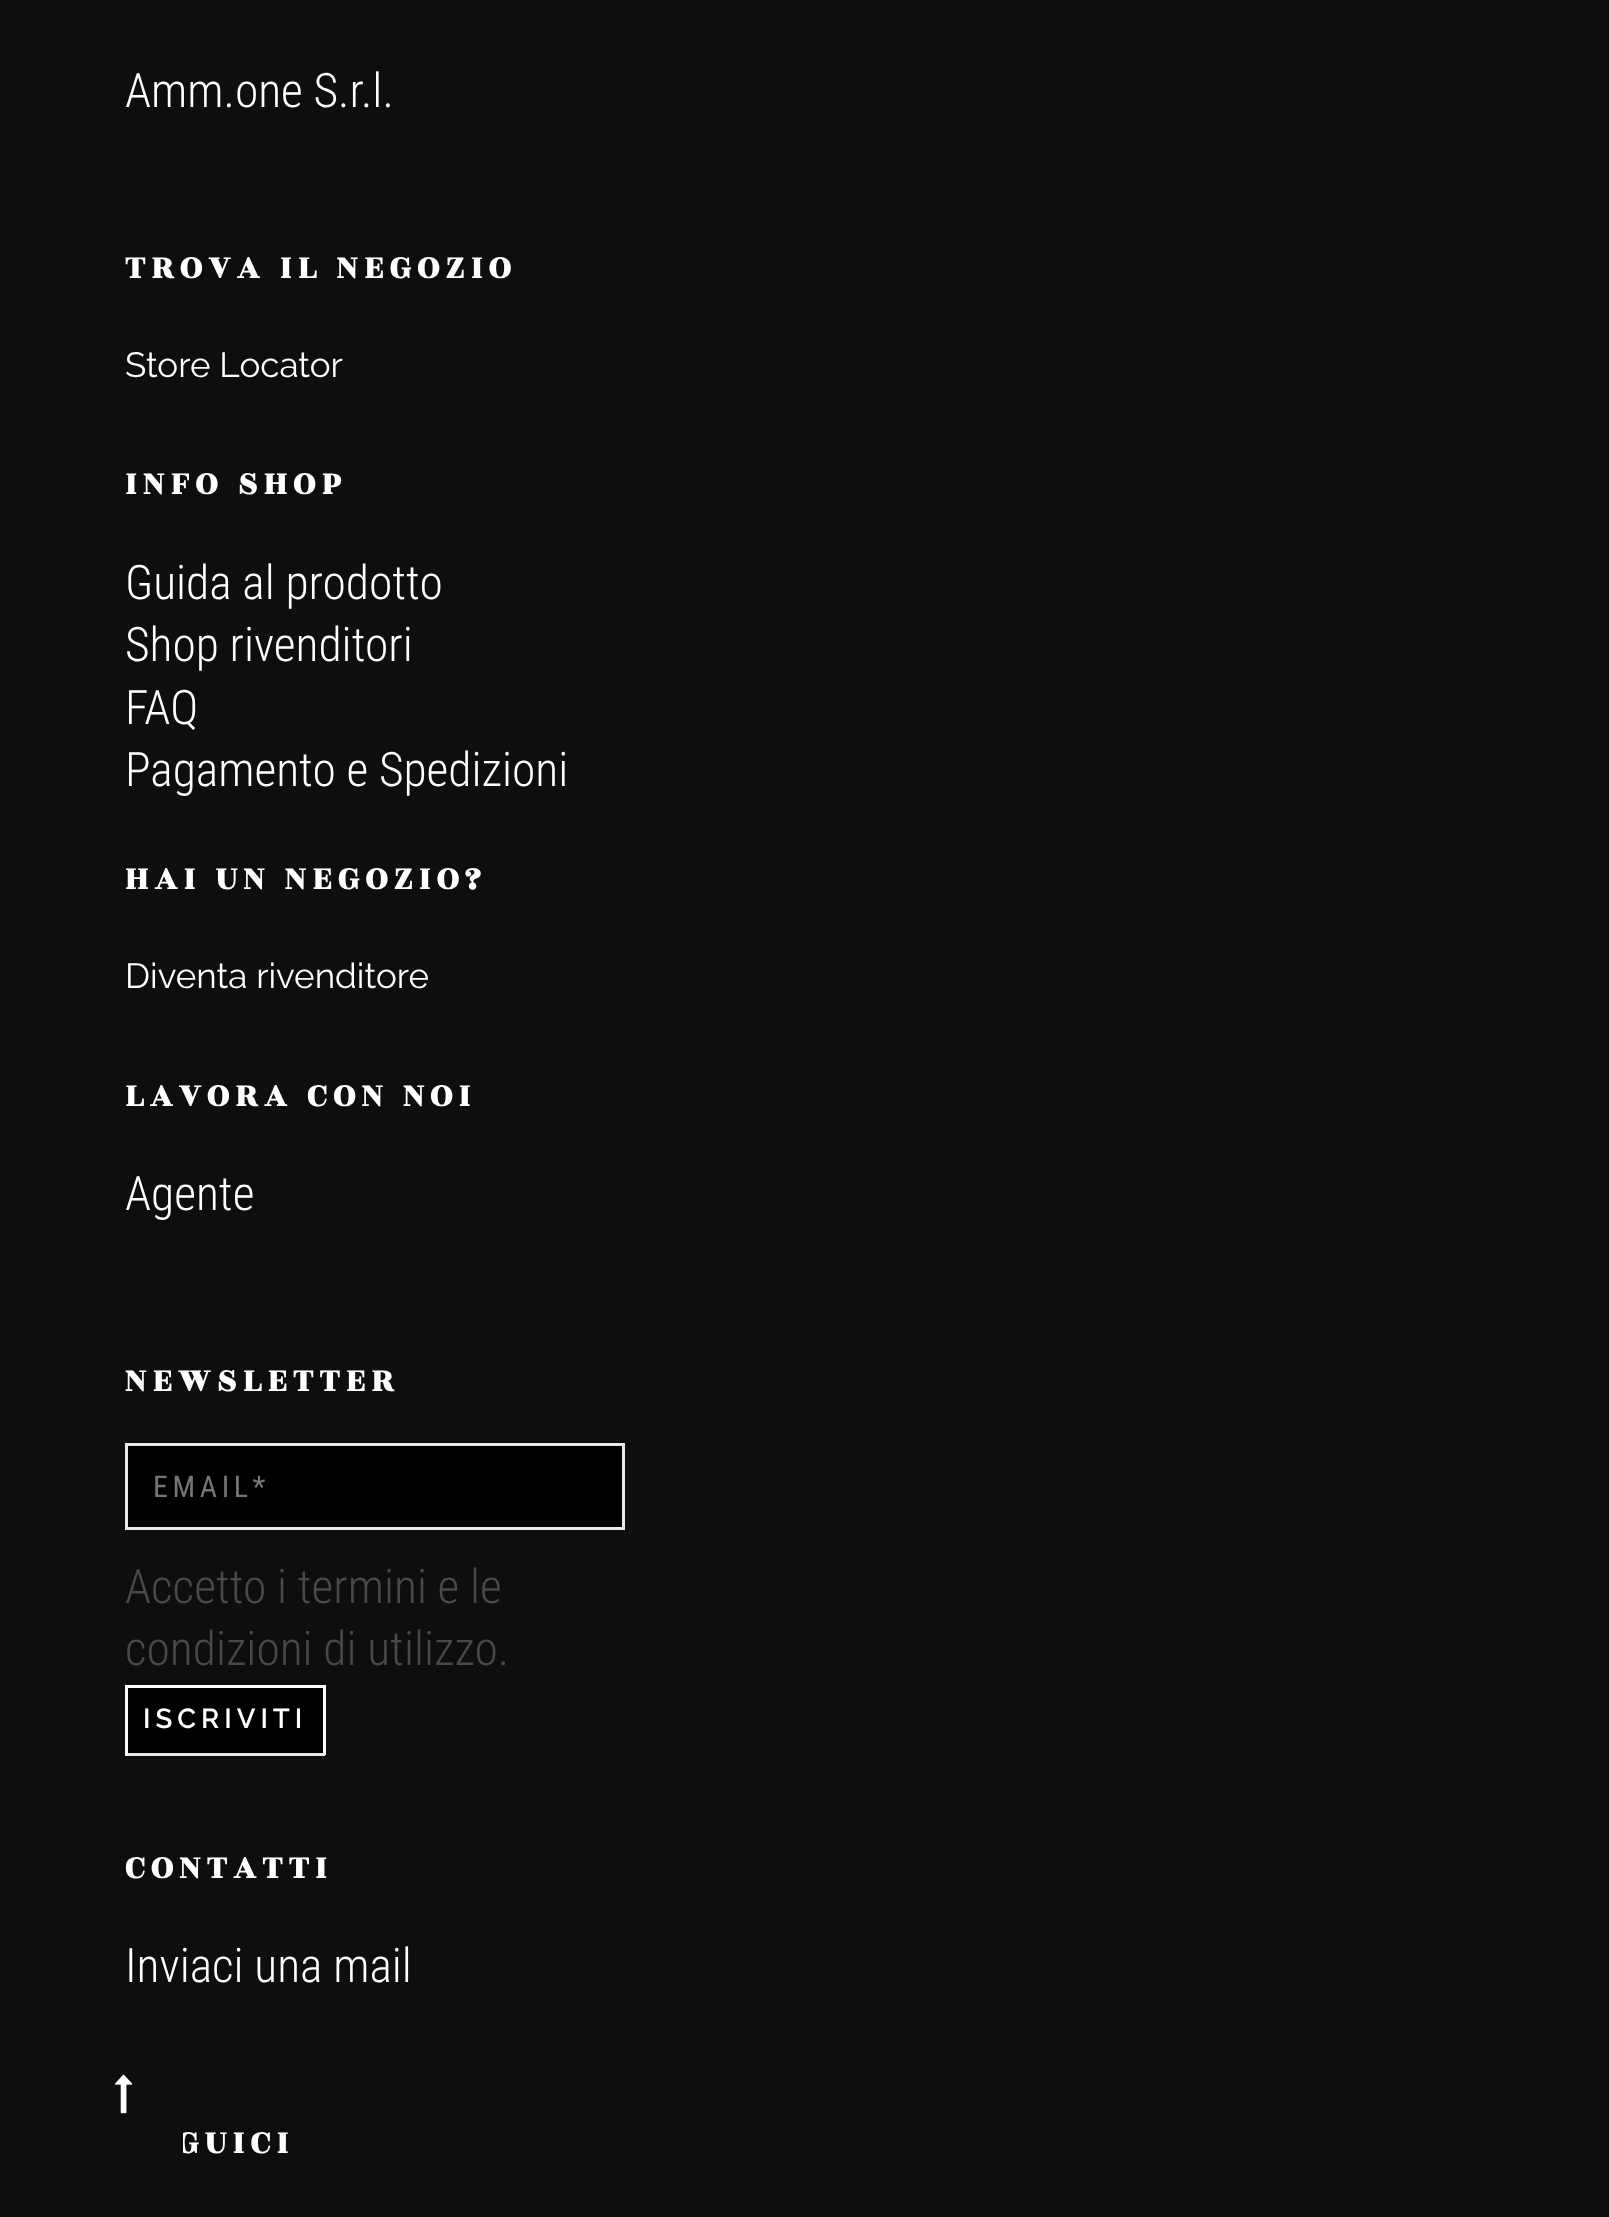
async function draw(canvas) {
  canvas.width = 1609;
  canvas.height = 2217;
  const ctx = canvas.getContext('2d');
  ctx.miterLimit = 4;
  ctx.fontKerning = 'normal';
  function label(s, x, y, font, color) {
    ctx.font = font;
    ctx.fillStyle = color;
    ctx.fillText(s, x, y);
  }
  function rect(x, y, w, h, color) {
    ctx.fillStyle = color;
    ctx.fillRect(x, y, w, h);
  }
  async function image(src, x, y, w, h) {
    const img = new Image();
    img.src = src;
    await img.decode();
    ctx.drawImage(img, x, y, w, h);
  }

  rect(0, 0, 1609, 2217, '#0e0e0e');
  label('Amm.one S.r.l.', 125, 107, '300 47.5px Roboto Condensed', '#fff');
  ctx.letterSpacing = '6.5px';
  label('TROVA IL NEGOZIO', 125, 278, 'bold 35px Rozha One', '#fff');
  ctx.letterSpacing = '0px';
  label('Store Locator', 125, 377, '35px Raleway', '#fff');
  ctx.letterSpacing = '6.5px';
  label('INFO SHOP', 125, 494, 'bold 35px Rozha One', '#fff');
  ctx.letterSpacing = '0px';
  label('Guida al prodotto', 125, 599, '300 47.5px Roboto Condensed', '#fff');
  label('Shop rivenditori', 125, 661, '300 47.5px Roboto Condensed', '#fff');
  label('FAQ', 125, 724, '300 47.5px Roboto Condensed', '#fff');
  label('Pagamento e Spedizioni', 125, 786, '300 47.5px Roboto Condensed', '#fff');
  ctx.letterSpacing = '6.5px';
  label('HAI UN NEGOZIO?', 125, 889, 'bold 35px Rozha One', '#fff');
  ctx.letterSpacing = '0px';
  label('Diventa rivenditore', 125, 988, '35px Raleway', '#fff');
  ctx.letterSpacing = '6.5px';
  label('LAVORA CON NOI', 125, 1106, 'bold 35px Rozha One', '#fff');
  ctx.letterSpacing = '0px';
  label('Agente', 125, 1210, '300 47.5px Roboto Condensed', '#fff');
  ctx.letterSpacing = '6.5px';
  label('NEWSLETTER', 125, 1391, 'bold 35px Rozha One', '#fff');
  ctx.fillStyle = '#000';
  ctx.beginPath();
  ctx.rect(126.5, 1444.5, 497, 84);
  ctx.fill();
  ctx.strokeStyle = '#e9e9e9';
  ctx.lineWidth = 3;
  ctx.stroke();
  ctx.letterSpacing = '4.5px';
  label('EMAIL*', 153, 1497, '30px Roboto Condensed', '#757575');
  ctx.letterSpacing = '0px';
  label('Accetto i termini e le', 125, 1603, '300 47.5px Roboto Condensed', '#494949');
  label('condizioni di utilizzo.', 125, 1665, '300 47.5px Roboto Condensed', '#494949');
  rect(128, 1688, 195, 65, '#000');
  rect(125, 1685, 200, 3, '#fff');
  rect(323, 1685, 3, 70, '#fff');
  rect(125, 1753, 200, 3, '#e9e9e9');
  rect(125, 1685, 3, 70, '#fff');
  ctx.letterSpacing = '5px';
  label('ISCRIVITI', 143, 1728, '600 27.5px Raleway', '#fff');
  ctx.letterSpacing = '6.5px';
  label('CONTATTI', 125, 1878, 'bold 35px Rozha One', '#fff');
  ctx.letterSpacing = '0px';
  label('Inviaci una mail', 125, 1982, '300 47.5px Roboto Condensed', '#fff');
  ctx.letterSpacing = '6.5px';
  label('GUICI', 177, 2153, 'bold 35px Rozha One', '#fff');
  rect(177, 2133, 6, 20, '#0e0e0e');
  await image('assets/img1.png', 115, 2074, 18, 40);
}

draw(document.querySelector('canvas'));
